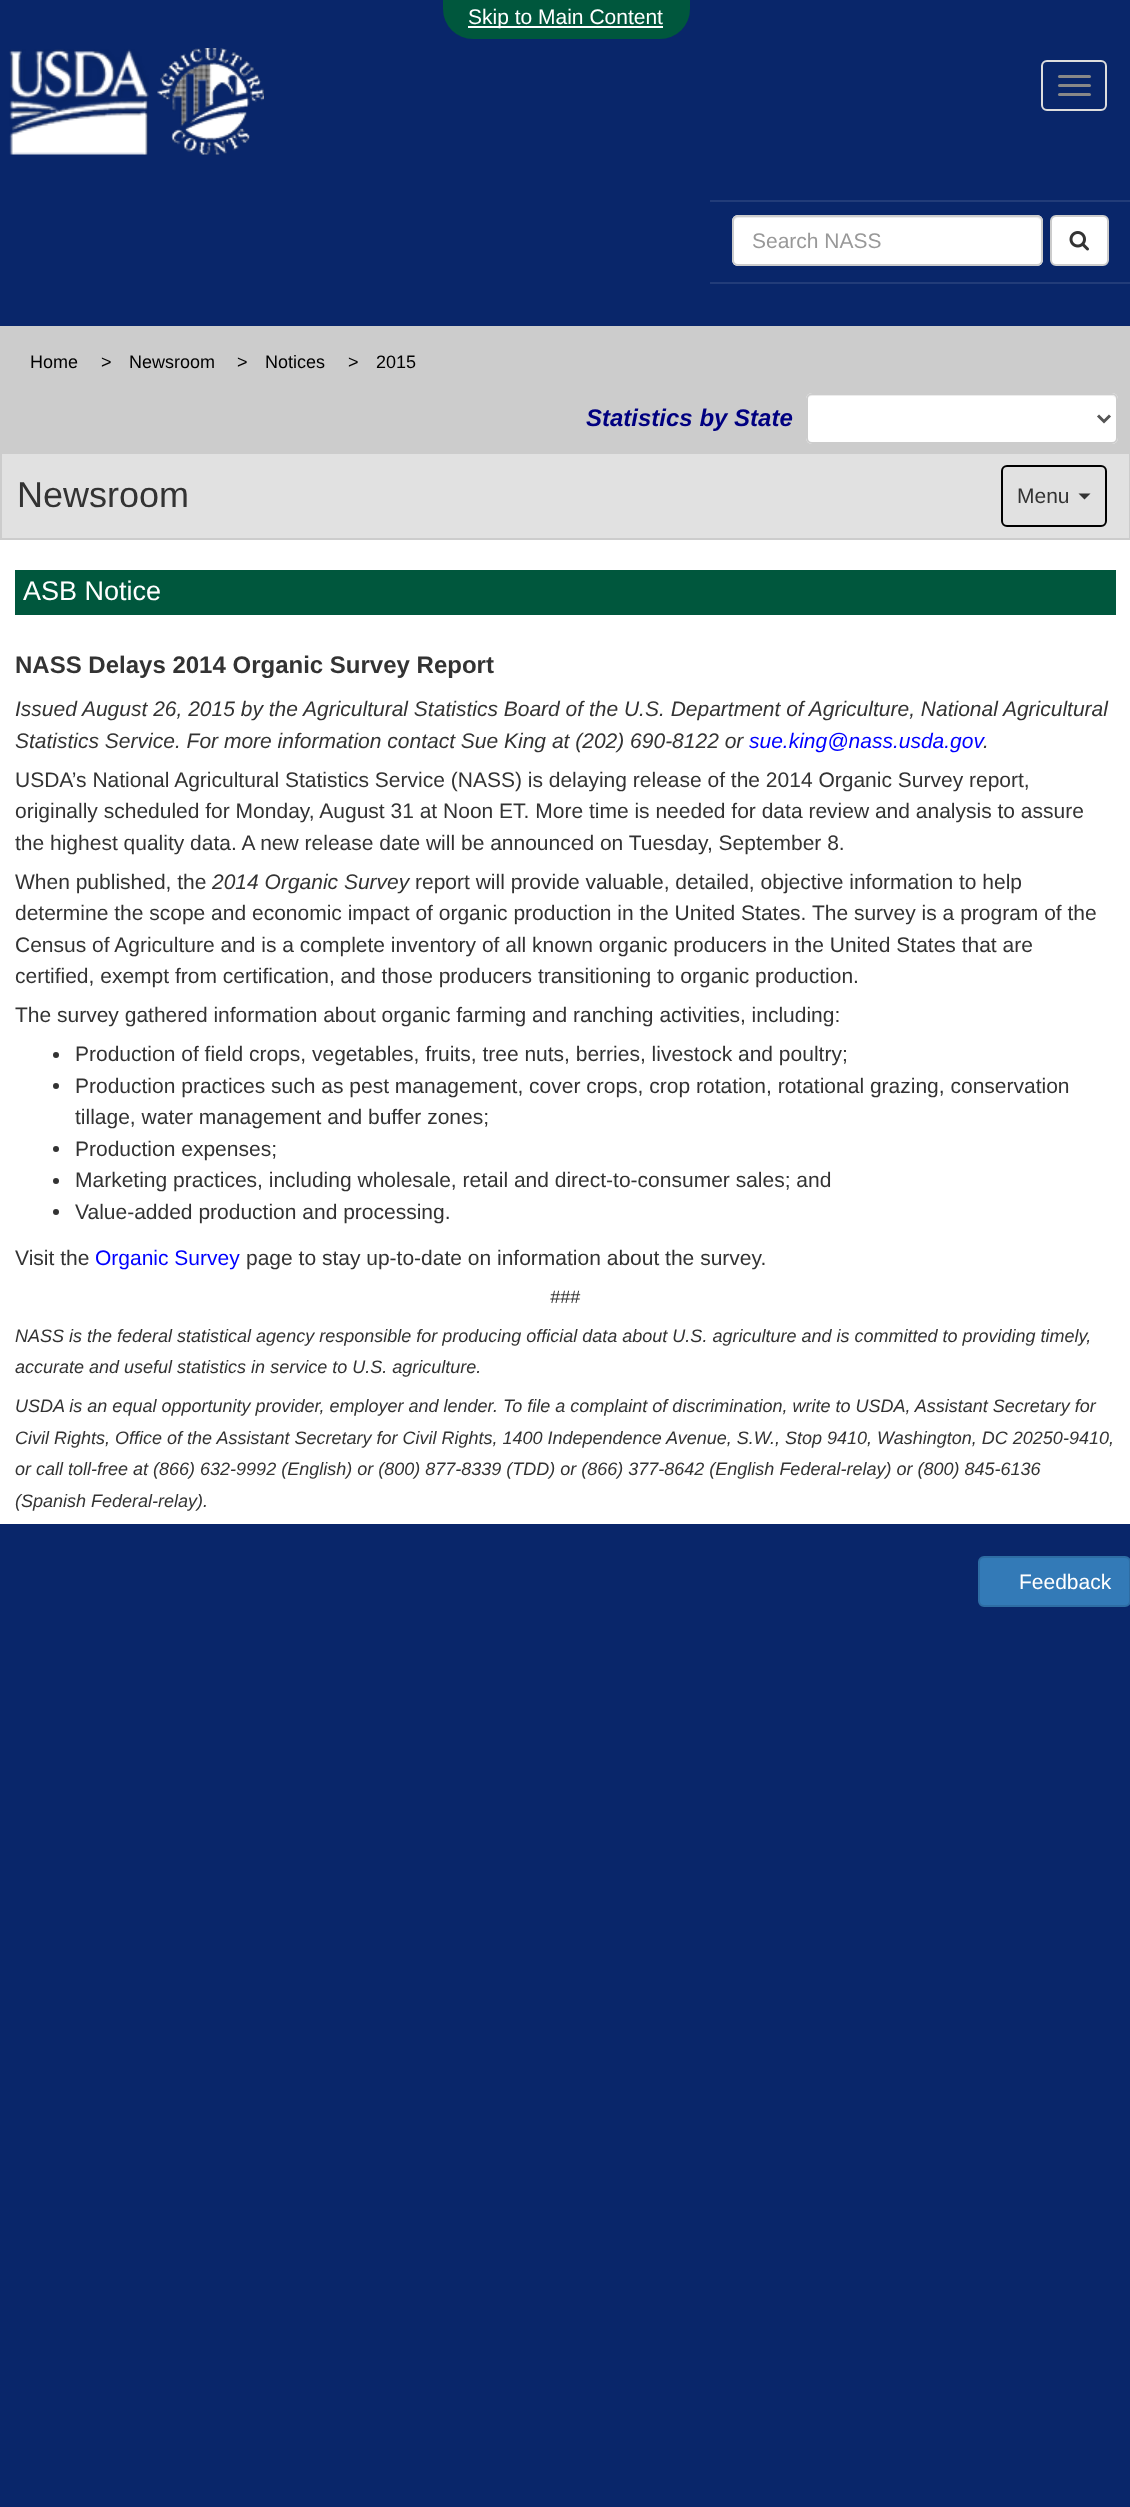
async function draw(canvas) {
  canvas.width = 1130;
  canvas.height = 2507;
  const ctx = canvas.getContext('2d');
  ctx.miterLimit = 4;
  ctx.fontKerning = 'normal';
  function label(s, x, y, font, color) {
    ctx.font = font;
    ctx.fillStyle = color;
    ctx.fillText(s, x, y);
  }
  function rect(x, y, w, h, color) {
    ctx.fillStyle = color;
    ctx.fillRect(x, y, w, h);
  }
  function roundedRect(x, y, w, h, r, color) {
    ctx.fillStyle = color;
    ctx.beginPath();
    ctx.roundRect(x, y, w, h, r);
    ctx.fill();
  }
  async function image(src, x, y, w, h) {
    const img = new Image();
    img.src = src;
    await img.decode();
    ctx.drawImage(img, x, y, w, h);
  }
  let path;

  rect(0, 0, 1130, 2507, '#09266a');
  ctx.fillStyle = '#00573d';
  ctx.beginPath();
  ctx.roundRect(443, 0, 247, 39, [0, 0, 30, 30]);
  ctx.fill();
  rect(468, 26, 195, 2, '#fff');
  label('Skip to Main Content', 468, 24, '21px Liberation Sans', '#fff');
  await image('assets/img1.png', 9, 49, 140, 106);
  await image('assets/img2.png', 157, 48, 107, 107);
  ctx.beginPath();
  ctx.roundRect(1042, 61, 64, 49, 5);
  ctx.strokeStyle = '#ddd';
  ctx.lineWidth = 2;
  ctx.stroke();
  roundedRect(1058, 75, 33, 3, 1.5, '#888');
  roundedRect(1058, 84, 33, 3, 1.5, '#888');
  roundedRect(1058, 93, 33, 3, 1.5, '#888');
  rect(710, 282, 420, 2, '#223c79');
  rect(710, 200, 420, 2, '#223c79');
  roundedRect(732, 215, 311, 51, 6, '#fff');
  ctx.fillStyle = '#ececec';
  path = new Path2D('M738 218H1036C1039 218 1041 220 1041 222C1041 219 1039 216 1036 216H739C736 216 734 219 734 222C734 220 736 218 738 218Z');
  ctx.fill(path);
  ctx.beginPath();
  ctx.roundRect(733, 216, 309, 49, 5);
  ctx.strokeStyle = '#ccc';
  ctx.stroke();
  label('Search NASS', 752, 248, '21px Liberation Sans', '#999');
  ctx.fillStyle = '#fff';
  ctx.beginPath();
  ctx.roundRect(1051, 216, 57, 49, 5);
  ctx.fill();
  ctx.stroke();
  await image('assets/img3.png', 1069, 231, 20, 20);
  rect(0, 326, 1130, 126, '#ccc');
  label('Home', 30, 368, '18px Liberation Sans', '#000');
  label('>', 101, 368, '18px Liberation Sans', '#000');
  label('Newsroom', 129, 368, '18px Liberation Sans', '#000');
  label('>', 237, 368, '18px Liberation Sans', '#000');
  label('Notices', 265, 368, '18px Liberation Sans', '#000');
  label('>', 348, 368, '18px Liberation Sans', '#000');
  label('2015', 376, 368, '18px Liberation Sans', '#000');
  label('Statistics by State', 586, 426, 'italic bold 24px Liberation Sans', '#000080');
  roundedRect(806, 393, 312, 51, 6, '#fff');
  ctx.fillStyle = '#ececec';
  path = new Path2D('M812 396H1112C1114 396 1116 398 1116 400C1116 397 1114 395 1111 395H812C809 395 807 397 807 400C807 398 809 396 812 396Z');
  ctx.fill(path);
  ctx.beginPath();
  ctx.roundRect(807, 394, 310, 49, 5);
  ctx.stroke();
  path = new Path2D('M1098 415.5L1104 421.5L1110 415.5');
  ctx.strokeStyle = '#555';
  ctx.lineWidth = 3;
  ctx.stroke(path);
  rect(0, 540, 1130, 984, '#fff');
  ctx.fillStyle = '#e1e1e1';
  ctx.beginPath();
  ctx.rect(1, 453, 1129, 86);
  ctx.fill();
  ctx.strokeStyle = '#ccc';
  ctx.lineWidth = 2;
  ctx.stroke();
  label('Newsroom', 17, 507, '36px Liberation Sans', '#333');
  ctx.beginPath();
  ctx.roundRect(1002, 466, 104, 60, 5);
  ctx.strokeStyle = '#000';
  ctx.stroke();
  label('Menu', 1017, 503, '21px Liberation Sans', '#333');
  path = new Path2D('M1078.5 493.5H1090.5L1084.5 499.5Z');
  ctx.fill(path);
  rect(15, 570, 1101, 45, '#00573d');
  label('ASB Notice', 23, 600, '27px Liberation Sans', '#fff');
  label('NASS Delays 2014 Organic Survey Report', 15, 673, 'bold 24px Liberation Sans', '#333');
  label('Issued August 26, 2015 by the Agricultural Statistics Board of the U.S. Department of Agriculture, National Agricultural', 15, 716, 'italic 21px Liberation Sans', '#333');
  label('Statistics Service. For more information contact Sue King at (202) 690-8122 or', 15, 748, 'italic 21px Liberation Sans', '#333');
  label('sue.king@nass.usda.gov', 749, 748, 'italic 21px Liberation Sans', '#00f');
  label('.', 983, 748, 'italic 21px Liberation Sans', '#333');
  label('USDA’s National Agricultural Statistics Service (NASS) is delaying release of the 2014 Organic Survey report,', 15, 787, '21px Liberation Sans', '#333');
  label('originally scheduled for Monday, August 31 at Noon ET. More time is needed for data review and analysis to assure', 15, 818, '21px Liberation Sans', '#333');
  label('the highest quality data. A new release date will be announced on Tuesday, September 8.', 15, 850, '21px Liberation Sans', '#333');
  label('When published, the', 15, 889, '21px Liberation Sans', '#333');
  label('2014 Organic Survey', 212, 889, 'italic 21px Liberation Sans', '#333');
  label('report will provide valuable, detailed, objective information to help', 415, 889, '21px Liberation Sans', '#333');
  label('determine the scope and economic impact of organic production in the United States. The survey is a program of the', 15, 920, '21px Liberation Sans', '#333');
  label('Census of Agriculture and is a complete inventory of all known organic producers in the United States that are', 15, 952, '21px Liberation Sans', '#333');
  label('certified, exempt from certification, and those producers transitioning to organic production.', 15, 983, '21px Liberation Sans', '#333');
  label('The survey gathered information about organic farming and ranching activities, including:', 15, 1022, '21px Liberation Sans', '#333');
  ctx.beginPath();
  ctx.arc(56, 1055, 3, 0, 2 * Math.PI);
  ctx.fill();
  label('Production of field crops, vegetables, fruits, tree nuts, berries, livestock and poultry;', 75, 1061, '21px Liberation Sans', '#333');
  ctx.beginPath();
  ctx.arc(56, 1086, 3, 0, 2 * Math.PI);
  ctx.fill();
  label('Production practices such as pest management, cover crops, crop rotation, rotational grazing, conservation', 75, 1093, '21px Liberation Sans', '#333');
  label('tillage, water management and buffer zones;', 75, 1124, '21px Liberation Sans', '#333');
  ctx.beginPath();
  ctx.arc(56, 1149, 3, 0, 2 * Math.PI);
  ctx.fill();
  label('Production expenses;', 75, 1156, '21px Liberation Sans', '#333');
  ctx.beginPath();
  ctx.arc(56, 1181, 3, 0, 2 * Math.PI);
  ctx.fill();
  label('Marketing practices, including wholesale, retail and direct-to-consumer sales; and', 75, 1187, '21px Liberation Sans', '#333');
  ctx.beginPath();
  ctx.arc(56, 1212, 3, 0, 2 * Math.PI);
  ctx.fill();
  label('Value-added production and processing.', 75, 1219, '21px Liberation Sans', '#333');
  label('Visit the', 15, 1265, '21px Liberation Sans', '#333');
  label('Organic Survey', 95, 1265, '21px Liberation Sans', '#00f');
  label('page to stay up-to-date on information about the survey.', 246, 1265, '21px Liberation Sans', '#333');
  label('###', 550, 1303, 'italic 18px Liberation Sans', '#333');
  label('NASS is the federal statistical agency responsible for producing official data about U.S. agriculture and is committed to providing timely,', 15, 1342, 'italic 18px Liberation Sans', '#333');
  label('accurate and useful statistics in service to U.S. agriculture.', 15, 1373, 'italic 18px Liberation Sans', '#333');
  label('USDA is an equal opportunity provider, employer and lender. To file a complaint of discrimination, write to USDA, Assistant Secretary for', 15, 1412, 'italic 18px Liberation Sans', '#333');
  label('Civil Rights, Office of the Assistant Secretary for Civil Rights, 1400 Independence Avenue, S.W., Stop 9410, Washington, DC 20250-9410,', 15, 1444, 'italic 18px Liberation Sans', '#333');
  label('or call toll-free at (866) 632-9992 (English) or (800) 877-8339 (TDD) or (866) 377-8642 (English Federal-relay) or (800) 845-6136', 15, 1475, 'italic 18px Liberation Sans', '#333');
  label('(Spanish Federal-relay).', 15, 1507, 'italic 18px Liberation Sans', '#333');
  ctx.fillStyle = '#337ab7';
  ctx.beginPath();
  ctx.roundRect(979, 1557, 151, 49, 5);
  ctx.fill();
  ctx.strokeStyle = '#2e6da4';
  ctx.stroke();
  label('Feedback', 1019, 1589, '21px Liberation Sans', '#fff');
}

draw(document.querySelector('canvas'));
